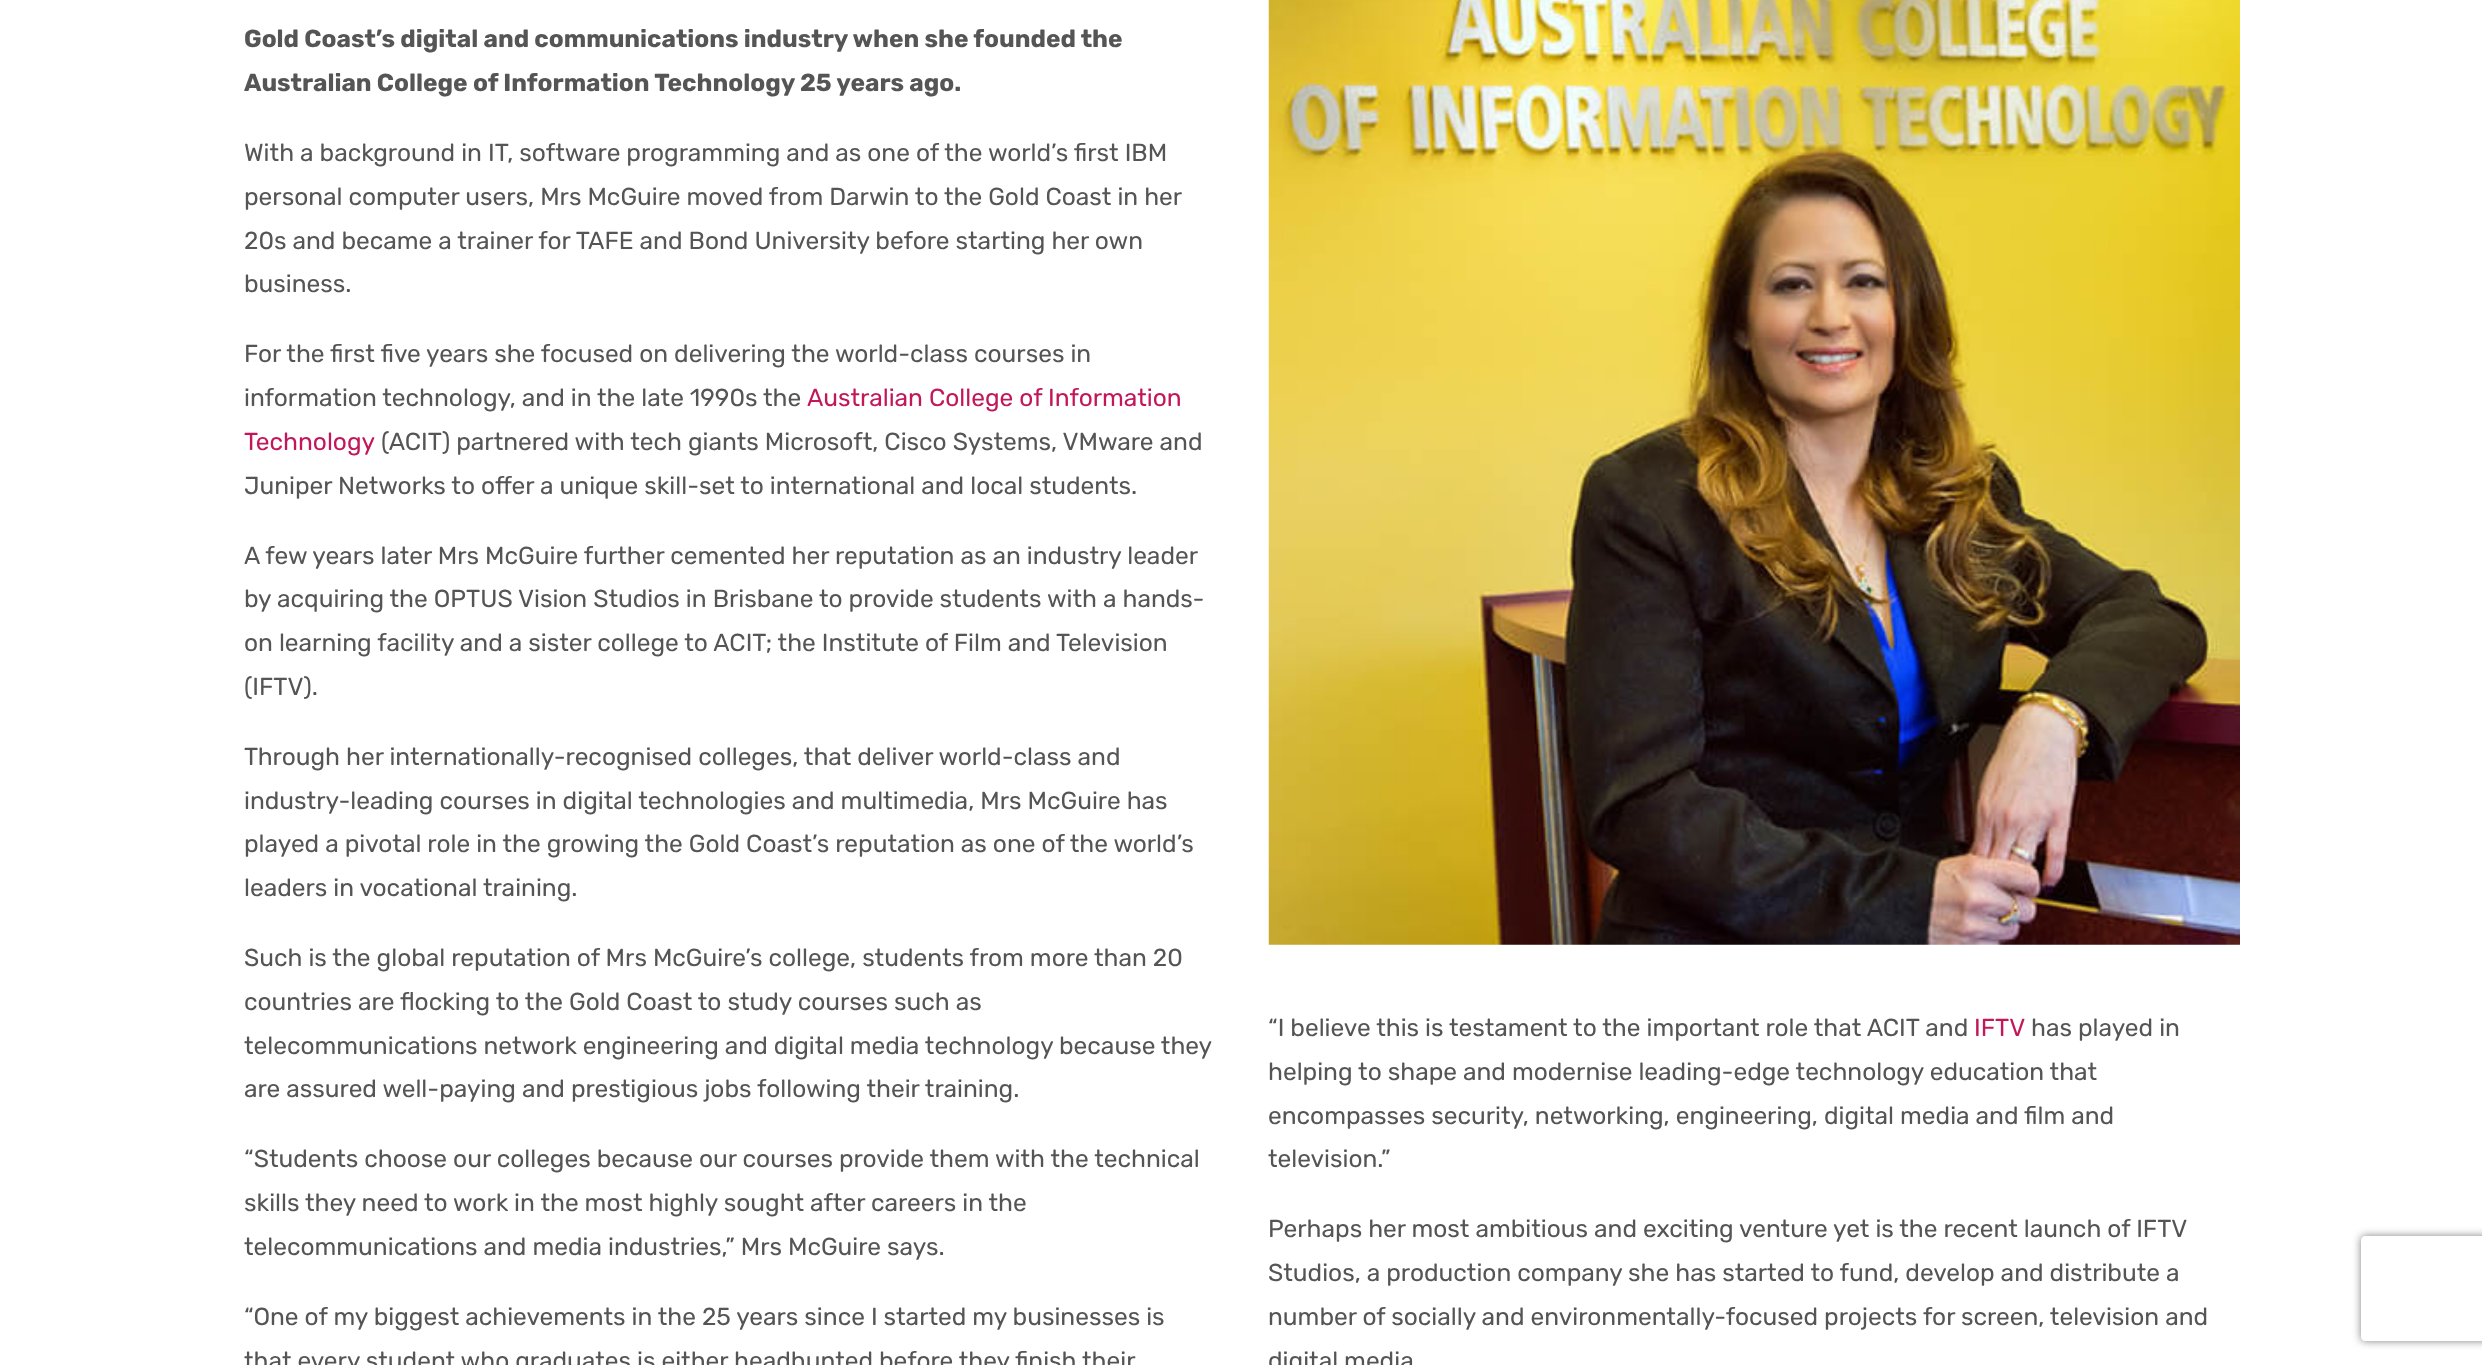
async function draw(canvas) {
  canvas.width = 2482;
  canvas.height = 1365;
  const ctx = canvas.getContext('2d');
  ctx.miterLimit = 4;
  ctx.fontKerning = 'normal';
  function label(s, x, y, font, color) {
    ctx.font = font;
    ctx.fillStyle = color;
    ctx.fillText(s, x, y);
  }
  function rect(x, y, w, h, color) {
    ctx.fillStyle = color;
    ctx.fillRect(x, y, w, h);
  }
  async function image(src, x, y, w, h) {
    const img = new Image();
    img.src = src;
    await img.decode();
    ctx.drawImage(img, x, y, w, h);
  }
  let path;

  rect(0, 0, 2482, 1365, '#fff');
  label('Gold Coast’s digital and communications industry when she founded the', 244, 47, 'bold 24.5px Rubik', '#555');
  label('Australian College of Information Technology 25 years ago.', 244, 91, 'bold 24.5px Rubik', '#555');
  label('With a background in IT, software programming and as one of the world’s first IBM', 244, 161, '24.5px Rubik', '#555');
  label('personal computer users, Mrs McGuire moved from Darwin to the Gold Coast in her', 244, 205, '24.5px Rubik', '#555');
  label('20s and became a trainer for TAFE and Bond University before starting her own', 244, 249, '24.5px Rubik', '#555');
  label('business.', 244, 292, '24.5px Rubik', '#555');
  label('For the first five years she focused on delivering the world-class courses in', 244, 362, '24.5px Rubik', '#555');
  label('information technology, and in the late 1990s the', 244, 406, '24.5px Rubik', '#555');
  label('Australian College of Information', 807, 406, '24.5px Rubik', '#c2185b');
  label('Technology', 244, 450, '24.5px Rubik', '#c2185b');
  label('(ACIT) partnered with tech giants Microsoft, Cisco Systems, VMware and', 381, 450, '24.5px Rubik', '#555');
  label('Juniper Networks to offer a unique skill-set to international and local students.', 244, 494, '24.5px Rubik', '#555');
  label('A few years later Mrs McGuire further cemented her reputation as an industry leader', 244, 564, '24.5px Rubik', '#555');
  label('by acquiring the OPTUS Vision Studios in Brisbane to provide students with a hands-', 244, 607, '24.5px Rubik', '#555');
  label('on learning facility and a sister college to ACIT; the Institute of Film and Television', 244, 651, '24.5px Rubik', '#555');
  label('(IFTV).', 244, 695, '24.5px Rubik', '#555');
  label('Through her internationally-recognised colleges, that deliver world-class and', 244, 765, '24.5px Rubik', '#555');
  label('industry-leading courses in digital technologies and multimedia, Mrs McGuire has', 244, 809, '24.5px Rubik', '#555');
  label('played a pivotal role in the growing the Gold Coast’s reputation as one of the world’s', 244, 852, '24.5px Rubik', '#555');
  label('leaders in vocational training.', 244, 896, '24.5px Rubik', '#555');
  label('Such is the global reputation of Mrs McGuire’s college, students from more than 20', 244, 966, '24.5px Rubik', '#555');
  label('countries are flocking to the Gold Coast to study courses such as', 244, 1010, '24.5px Rubik', '#555');
  label('telecommunications network engineering and digital media technology because they', 244, 1054, '24.5px Rubik', '#555');
  label('are assured well-paying and prestigious jobs following their training.', 244, 1097, '24.5px Rubik', '#555');
  label('“Students choose our colleges because our courses provide them with the technical', 244, 1167, '24.5px Rubik', '#555');
  label('skills they need to work in the most highly sought after careers in the', 244, 1211, '24.5px Rubik', '#555');
  label('telecommunications and media industries,” Mrs McGuire says.', 244, 1255, '24.5px Rubik', '#555');
  label('“One of my biggest achievements in the 25 years since I started my businesses is', 244, 1325, '24.5px Rubik', '#555');
  label('that every student who graduates is either headhunted before they finish their', 244, 1369, '24.5px Rubik', '#555');
  await image('assets/img1.png', 1268, 0, 972, 945);
  label('“I believe this is testament to the important role that ACIT and', 1268, 1036, '24.5px Rubik', '#555');
  label('IFTV', 1974, 1036, '24.5px Rubik', '#c2185b');
  label('has played in', 2031, 1036, '24.5px Rubik', '#555');
  label('helping to shape and modernise leading-edge technology education that', 1268, 1080, '24.5px Rubik', '#555');
  label('encompasses security, networking, engineering, digital media and film and', 1268, 1124, '24.5px Rubik', '#555');
  label('television.”', 1268, 1167, '24.5px Rubik', '#555');
  label('Perhaps her most ambitious and exciting venture yet is the recent launch of IFTV', 1268, 1237, '24.5px Rubik', '#555');
  label('Studios, a production company she has started to fund, develop and distribute a', 1268, 1281, '24.5px Rubik', '#555');
  label('number of socially and environmentally-focused projects for screen, television and', 1268, 1325, '24.5px Rubik', '#555');
  label('digital media', 1268, 1369, '24.5px Rubik', '#555');
  ctx.save();
  path = new Path2D('M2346 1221H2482V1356H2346ZM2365 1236H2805C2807 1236 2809 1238 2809 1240V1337C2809 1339 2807 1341 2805 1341H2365C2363 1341 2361 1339 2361 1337V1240C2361 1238 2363 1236 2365 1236Z');
  ctx.clip(path, 'evenodd');
  ctx.fillStyle = '#808080';
  ctx.filter = 'blur(4.5px)';
  ctx.beginPath();
  ctx.roundRect(2361, 1236, 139, 105, 4);
  ctx.fill();
  ctx.filter = 'none';
  ctx.restore();
}

draw(document.querySelector('canvas'));
